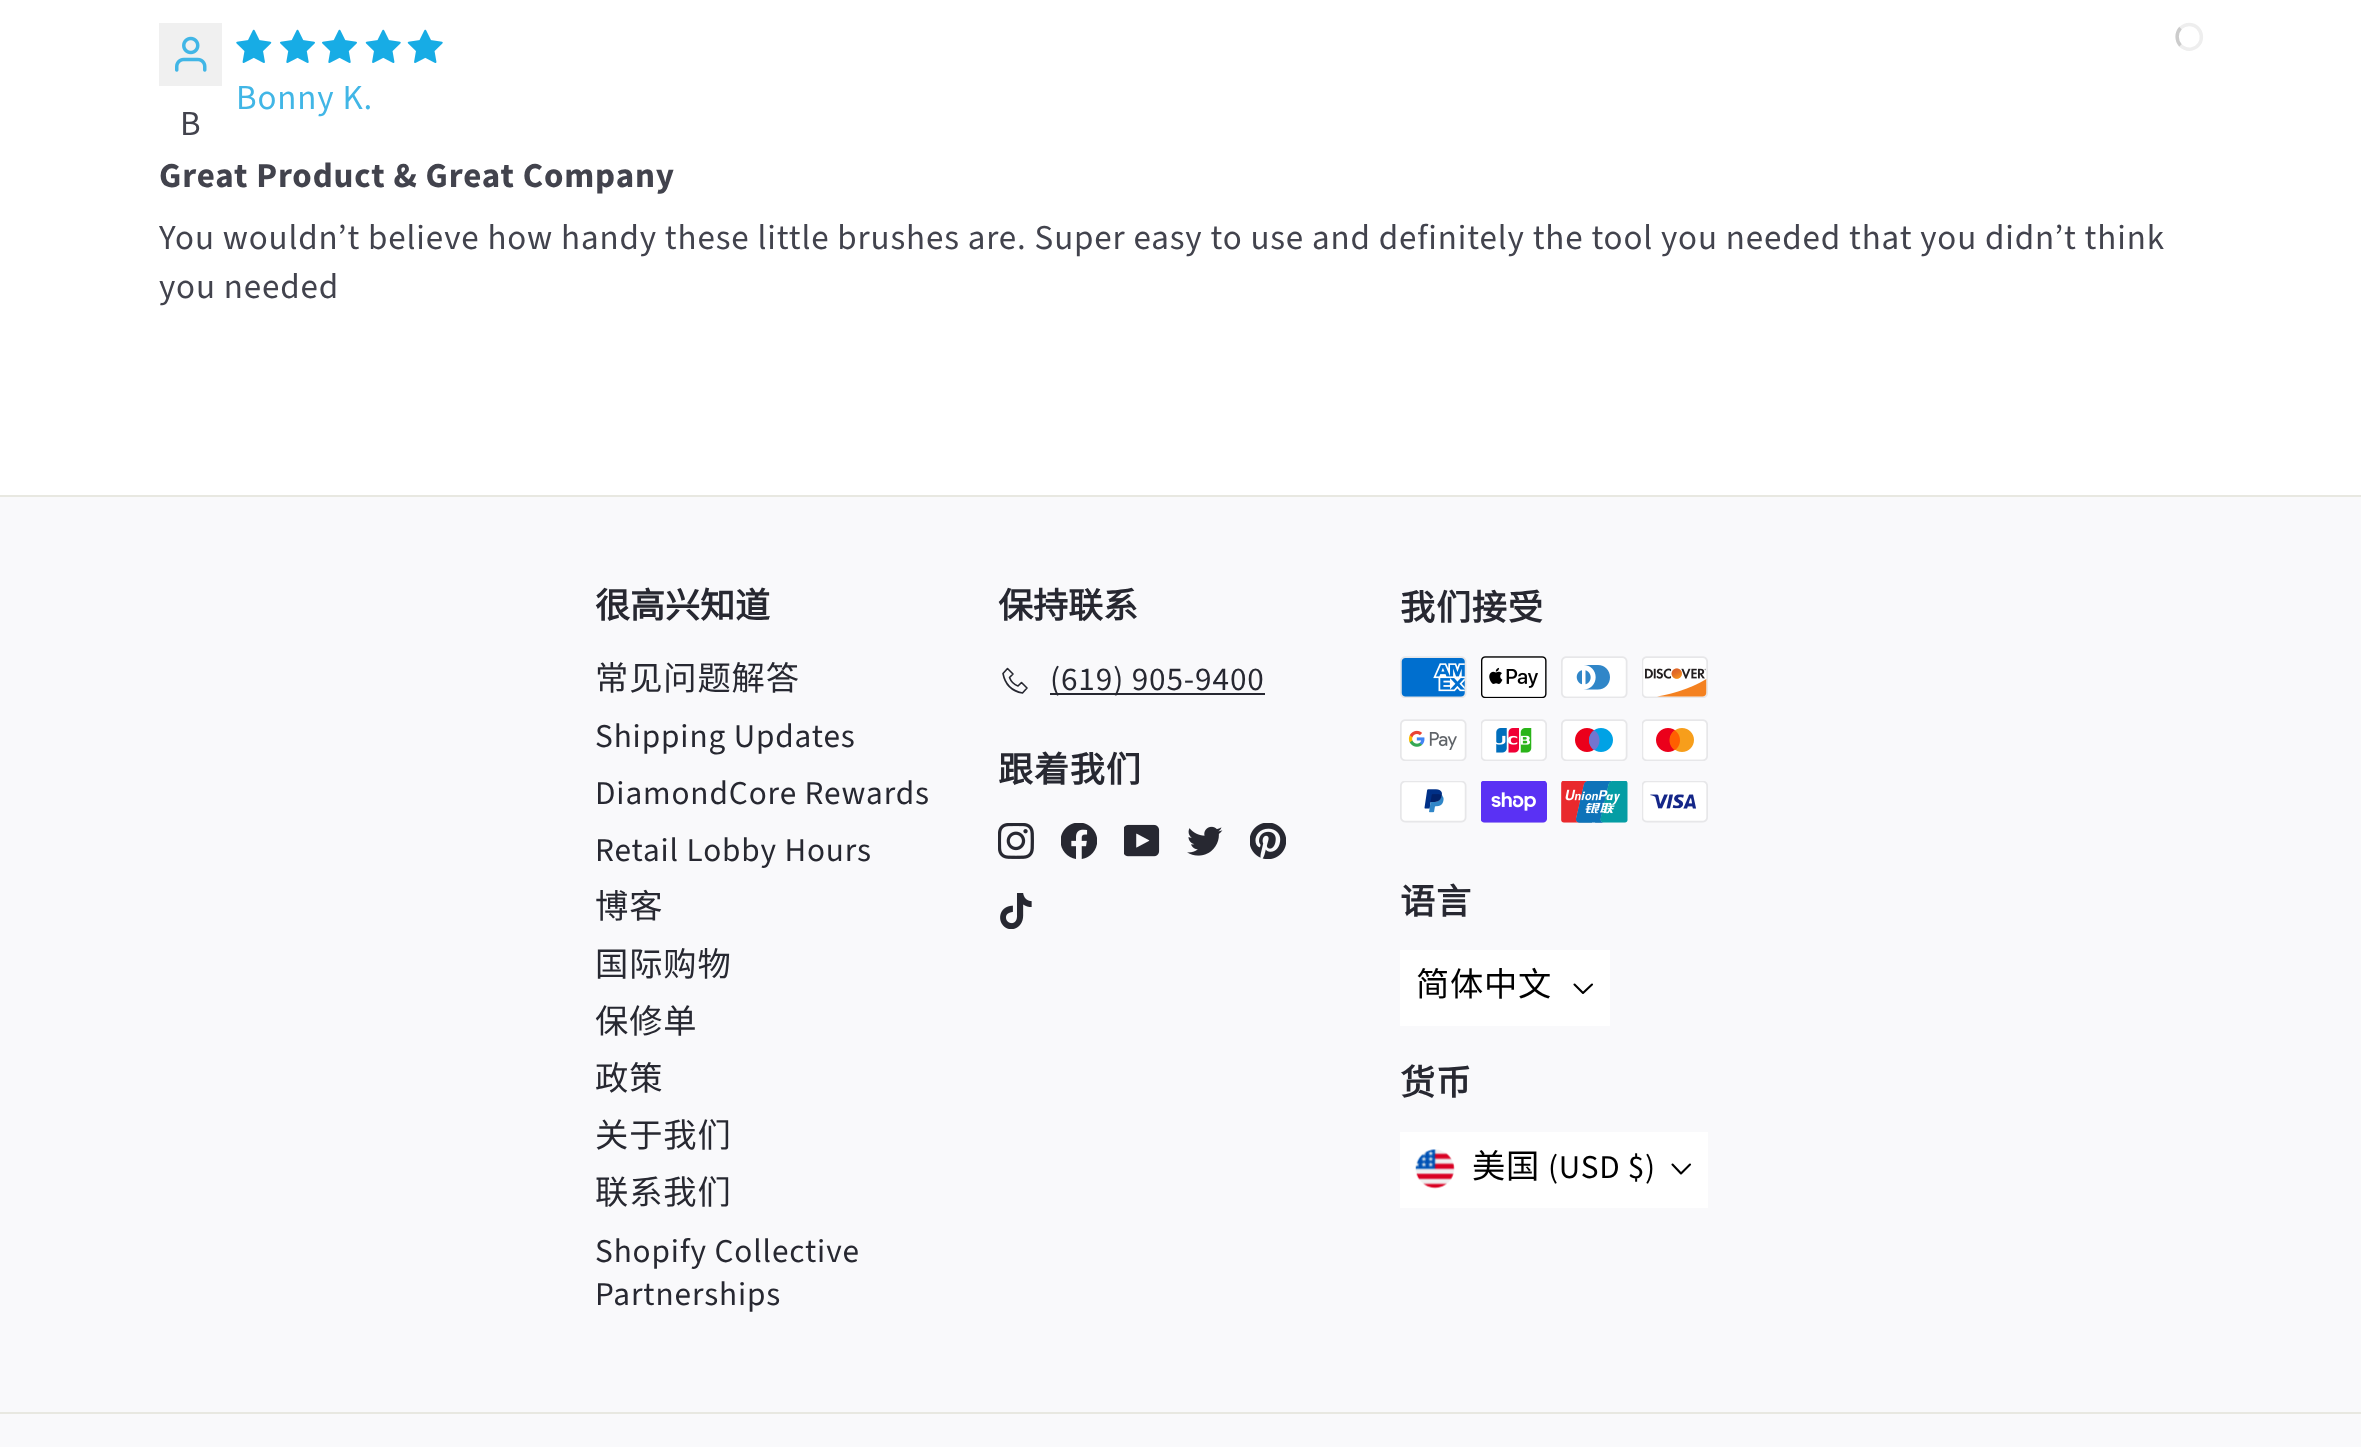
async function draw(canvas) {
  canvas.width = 2361;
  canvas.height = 1447;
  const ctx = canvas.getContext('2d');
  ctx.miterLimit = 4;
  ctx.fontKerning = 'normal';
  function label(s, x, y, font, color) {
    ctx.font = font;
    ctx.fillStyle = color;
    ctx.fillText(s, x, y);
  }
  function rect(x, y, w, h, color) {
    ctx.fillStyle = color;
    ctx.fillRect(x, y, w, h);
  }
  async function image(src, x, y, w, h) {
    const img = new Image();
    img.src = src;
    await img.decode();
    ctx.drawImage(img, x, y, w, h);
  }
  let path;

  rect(0, 0, 2361, 1447, '#fff');
  await image('assets/img1.png', 236, 29, 36, 34);
  await image('assets/img2.png', 280, 29, 35, 34);
  await image('assets/img2.png', 322, 29, 35, 34);
  await image('assets/img3.png', 365, 29, 36, 34);
  await image('assets/img3.png', 407, 29, 36, 34);
  path = new Path2D('M2180.5 28C2183 26 2186 24.5 2189 24.5C2204 24.5 2206 46 2191.5 49C2187.5 49.5 2183.5 48.5 2180.5 45.5');
  ctx.strokeStyle = '#eee';
  ctx.lineWidth = 3.5;
  ctx.stroke(path);
  path = new Path2D('M2180.5 45.5C2176 40.5 2176 33 2180.5 28');
  ctx.strokeStyle = '#ccc';
  ctx.stroke(path);
  ctx.letterSpacing = '0.88px';
  label('Bonny K.', 236, 109, '35px Source Sans Pro', '#41b6e6');
  rect(159, 23, 63, 63, '#f0f0f0');
  await image('assets/img4.png', 175, 36, 32, 36);
  label('B', 180, 135, '35px Source Sans Pro', '#42434d');
  label('Great Product & Great Company', 159, 187, 'bold 35px Source Sans Pro', '#42434d');
  label('You wouldn’t believe how handy these little brushes are. Super easy to use and definitely the tool you needed that you didn’t think', 159, 249, '35px Source Sans Pro', '#42434d');
  label('you needed', 159, 298, '35px Source Sans Pro', '#42434d');
  rect(0, 497, 2361, 950, '#f9f9fb');
  rect(0, 495, 2361, 2, '#e8e8e1');
  ctx.letterSpacing = '0px';
  label('很高兴知道', 595, 618, 'bold 35px Noto Sans CJK SC', '#272831');
  ctx.letterSpacing = '0.88px';
  label('常见问题解答', 595, 690, '33.25px Noto Sans CJK SC', '#272831');
  label('Shipping Updates', 595, 747, '33.25px Source Sans Pro', '#272831');
  label('DiamondCore Rewards', 595, 804, '33.25px Source Sans Pro', '#272831');
  label('Retail Lobby Hours', 595, 861, '33.25px Source Sans Pro', '#272831');
  label('博客', 595, 918, '33.25px Noto Sans CJK SC', '#272831');
  label('国际购物', 595, 976, '33.25px Noto Sans CJK SC', '#272831');
  label('保修单', 595, 1033, '33.25px Noto Sans CJK SC', '#272831');
  label('政策', 595, 1090, '33.25px Noto Sans CJK SC', '#272831');
  label('关于我们', 595, 1147, '33.25px Noto Sans CJK SC', '#272831');
  label('联系我们', 595, 1204, '33.25px Noto Sans CJK SC', '#272831');
  label('Shopify Collective', 595, 1262, '33.25px Source Sans Pro', '#272831');
  label('Partnerships', 595, 1305, '33.25px Source Sans Pro', '#272831');
  ctx.letterSpacing = '0px';
  label('保持联系', 998, 618, 'bold 35px Noto Sans CJK SC', '#272831');
  path = new Path2D('M1007.5 668.5L1013 674L1009.5 677.5C1011 681.5 1013.5 684.5 1018 686L1021.5 682.5L1027 688L1022.5 693C1011.5 691 1005 684 1003 673.5Z');
  ctx.strokeStyle = '#272831';
  ctx.lineWidth = 1.6;
  ctx.lineCap = 'round';
  ctx.lineJoin = 'round';
  ctx.stroke(path);
  rect(1050, 693, 215, 2, '#272831');
  ctx.letterSpacing = '0.88px';
  label('(619) 905-9400', 1050, 690, '33.25px Source Sans Pro', '#272831');
  label('跟着我们', 998, 782, 'bold 35px Noto Sans CJK SC', '#272831');
  await image('assets/img5.png', 998, 823, 36, 36);
  await image('assets/img6.png', 1061, 823, 36, 36);
  await image('assets/img7.png', 1124, 824, 36, 33);
  await image('assets/img8.png', 1187, 826, 36, 30);
  await image('assets/img9.png', 1250, 823, 36, 36);
  await image('assets/img10.png', 1000, 893, 32, 36);
  label('我们接受', 1400, 620, 'bold 35px Noto Sans CJK SC', '#272831');
  await image('assets/img11.png', 1400, 656, 67, 42);
  await image('assets/img12.png', 1481, 656, 66, 42);
  await image('assets/img13.png', 1561, 656, 67, 42);
  await image('assets/img14.png', 1642, 656, 66, 42);
  await image('assets/img15.png', 1400, 719, 67, 42);
  await image('assets/img16.png', 1481, 719, 66, 42);
  await image('assets/img17.png', 1561, 719, 67, 42);
  await image('assets/img18.png', 1642, 719, 66, 42);
  await image('assets/img19.png', 1400, 781, 67, 42);
  await image('assets/img20.png', 1481, 781, 66, 42);
  await image('assets/img21.png', 1561, 781, 67, 42);
  await image('assets/img22.png', 1642, 781, 66, 42);
  label('语言', 1400, 914, 'bold 35px Noto Sans CJK SC', '#272831');
  rect(1400, 950, 210, 76, '#fff');
  ctx.letterSpacing = '0.75px';
  label('简体中文', 1416, 996, '33.25px Noto Sans CJK SC', '#000');
  path = new Path2D('M1574.5 984.5L1583 993L1592 984.5');
  ctx.strokeStyle = '#000';
  ctx.lineWidth = 2.1;
  ctx.stroke(path);
  ctx.letterSpacing = '0.88px';
  label('货币', 1400, 1095, 'bold 35px Noto Sans CJK SC', '#272831');
  rect(1400, 1132, 308, 76, '#fff');
  await image('assets/img23.png', 1415, 1149, 40, 40);
  ctx.letterSpacing = '0.75px';
  label('美国', 1472, 1178, '33.25px Noto Sans CJK SC', '#000');
  label('(USD $)', 1548, 1178, '33.25px Source Sans Pro', '#000');
  path = new Path2D('M1672.5 1164.5L1681 1173.5L1690 1164.5');
  ctx.stroke(path);
  rect(0, 1412, 2361, 2, '#e8e8e1');
}

draw(document.querySelector('canvas'));
